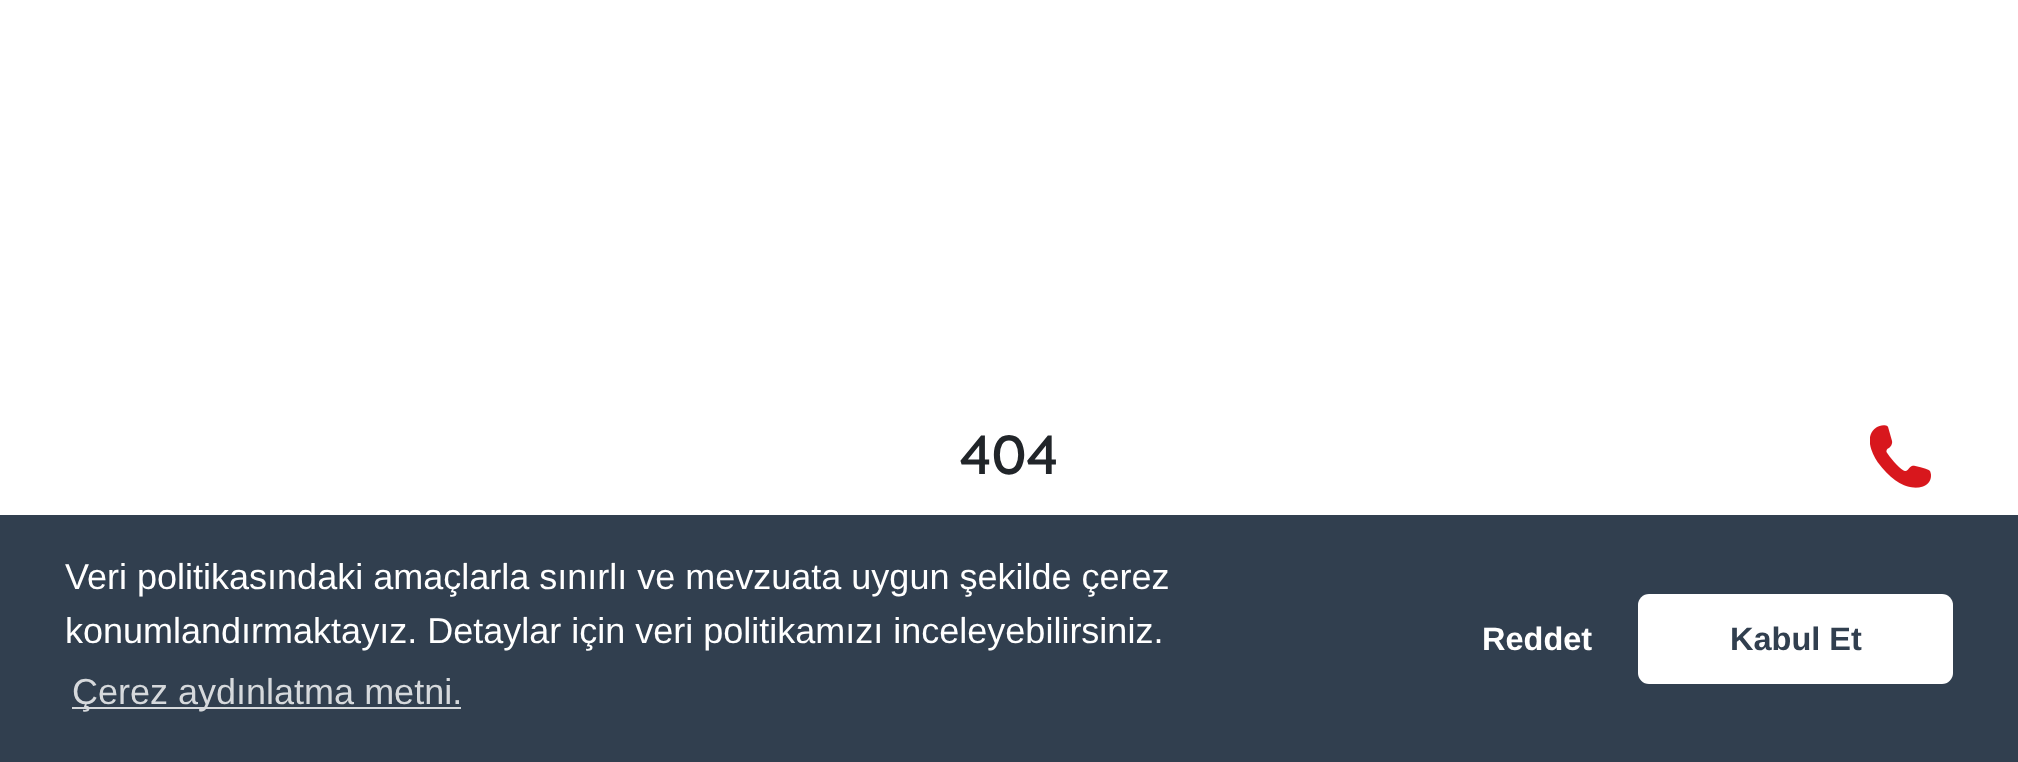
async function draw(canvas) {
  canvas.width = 2018;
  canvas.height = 762;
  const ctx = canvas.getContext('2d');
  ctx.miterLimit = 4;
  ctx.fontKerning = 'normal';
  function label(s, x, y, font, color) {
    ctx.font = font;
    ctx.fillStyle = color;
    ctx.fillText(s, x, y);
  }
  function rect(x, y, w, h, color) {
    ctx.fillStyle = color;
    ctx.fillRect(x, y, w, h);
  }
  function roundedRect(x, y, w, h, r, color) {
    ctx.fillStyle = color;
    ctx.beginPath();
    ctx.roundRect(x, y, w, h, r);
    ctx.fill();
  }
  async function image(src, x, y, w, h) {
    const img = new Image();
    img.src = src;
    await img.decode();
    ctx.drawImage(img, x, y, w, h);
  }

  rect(0, 0, 2018, 762, '#fff');
  label('404', 960, 474, '500 52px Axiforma', '#212529');
  await image('assets/img1.png', 1870, 425, 61, 63);
  rect(0, 515, 2018, 247, '#313f4f');
  label('Veri politikasındaki amaçlarla sınırlı ve mevzuata uygun şekilde çerez', 65, 589, '36px Liberation Sans', '#fff');
  label('konumlandırmaktayız. Detaylar için veri politikamızı inceleyebilirsiniz.', 65, 643, '36px Liberation Sans', '#fff');
  rect(72, 707, 389, 2, '#d6d9dc');
  label('Çerez aydınlatma metni.', 72, 704, '36px Liberation Sans', '#d6d9dc');
  label('Reddet', 1482, 650, 'bold 32.5px Liberation Sans', '#fff');
  roundedRect(1638, 594, 315, 90, 11, '#fff');
  label('Kabul Et', 1730, 650, 'bold 32.5px Liberation Sans', '#313f4f');
}

draw(document.querySelector('canvas'));
